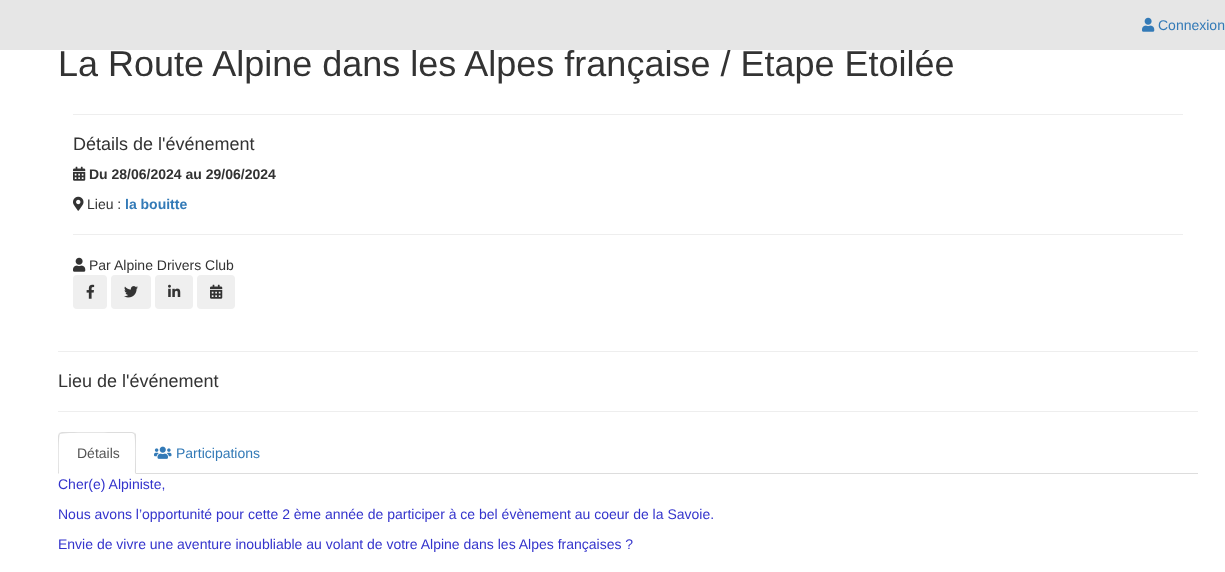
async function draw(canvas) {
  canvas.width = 1225;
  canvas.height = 572;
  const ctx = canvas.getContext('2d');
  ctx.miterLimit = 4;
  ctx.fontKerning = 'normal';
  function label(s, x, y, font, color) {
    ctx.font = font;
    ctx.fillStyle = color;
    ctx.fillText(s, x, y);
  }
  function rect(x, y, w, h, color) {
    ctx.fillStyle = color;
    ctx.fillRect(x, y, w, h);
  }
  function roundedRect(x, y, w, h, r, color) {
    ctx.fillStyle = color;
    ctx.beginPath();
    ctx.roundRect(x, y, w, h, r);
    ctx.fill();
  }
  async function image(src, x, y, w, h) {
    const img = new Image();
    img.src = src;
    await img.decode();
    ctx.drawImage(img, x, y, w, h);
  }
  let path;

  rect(0, 0, 1225, 572, '#fff');
  label('La Route Alpine dans les Alpes française / Etape Etoilée', 58, 76, '36px Liberation Sans', '#333');
  rect(0, 0, 1225, 50, '#e6e6e6');
  await image('assets/img1.png', 1142, 17, 13, 15);
  label('Connexion', 1158, 30, '14px Liberation Sans', '#337ab7');
  rect(73, 114, 1110, 1, '#eee');
  label('Détails de l\'événement', 73, 150, '18px Liberation Sans', '#333');
  await image('assets/img2.png', 73, 166, 13, 15);
  label('Du 28/06/2024 au 29/06/2024', 89, 179, 'bold 14px Liberation Sans', '#333');
  await image('assets/img3.png', 73, 196, 11, 15);
  label('Lieu :', 87, 209, '14px Liberation Sans', '#333');
  label('la bouitte', 125, 209, 'bold 14px Liberation Sans', '#337ab7');
  rect(73, 234, 1110, 1, '#eee');
  await image('assets/img4.png', 73, 257, 13, 15);
  label('Par', 89, 270, '14px Liberation Sans', '#333');
  label('Alpine Drivers Club', 114, 270, '14px Liberation Sans', '#333');
  roundedRect(73, 275, 34, 34, 4, '#efefef');
  await image('assets/img5.png', 86, 284, 9, 15);
  roundedRect(111, 275, 40, 34, 4, '#efefef');
  await image('assets/img6.png', 124, 286, 14, 12);
  roundedRect(155, 275, 38, 34, 4, '#efefef');
  await image('assets/img7.png', 168, 284, 13, 13);
  roundedRect(197, 275, 38, 34, 4, '#efefef');
  await image('assets/img8.png', 210, 284, 13, 15);
  rect(58, 351, 1140, 1, '#eee');
  label('Lieu de l\'événement', 58, 387, '18px Liberation Sans', '#333');
  rect(58, 411, 1140, 1, '#eee');
  rect(136, 473, 1062, 1, '#ddd');
  path = new Path2D('M62 432L59 433L60 434C62 432 114 433 120 433H132L134 434L135 433L132 432Z');
  ctx.fill(path);
  path = new Path2D('M136 474V436C136 435 136 434 135 433L134 434C136 436 135 468 135 473Z');
  ctx.fill(path);
  path = new Path2D('M58 474L59 473C59 468 58 436 60 434L59 433L58 436Z');
  ctx.fill(path);
  label('Détails', 77, 458, '14px Liberation Sans', '#555');
  await image('assets/img9.png', 154, 446, 18, 13);
  label('Participations', 176, 458, '14px Liberation Sans', '#337ab7');
  label('Cher(e) Alpiniste,', 58, 489, '14px Liberation Sans', '#33c');
  label('Nous avons l’opportunité pour cette 2 ème année de participer à ce bel évènement au coeur de la Savoie.', 58, 519, '14px Liberation Sans', '#33c');
  label('Envie de vivre une aventure inoubliable au volant de votre Alpine dans les Alpes françaises ?', 58, 549, '14px Liberation Sans', '#33c');
}

draw(document.querySelector('canvas'));
